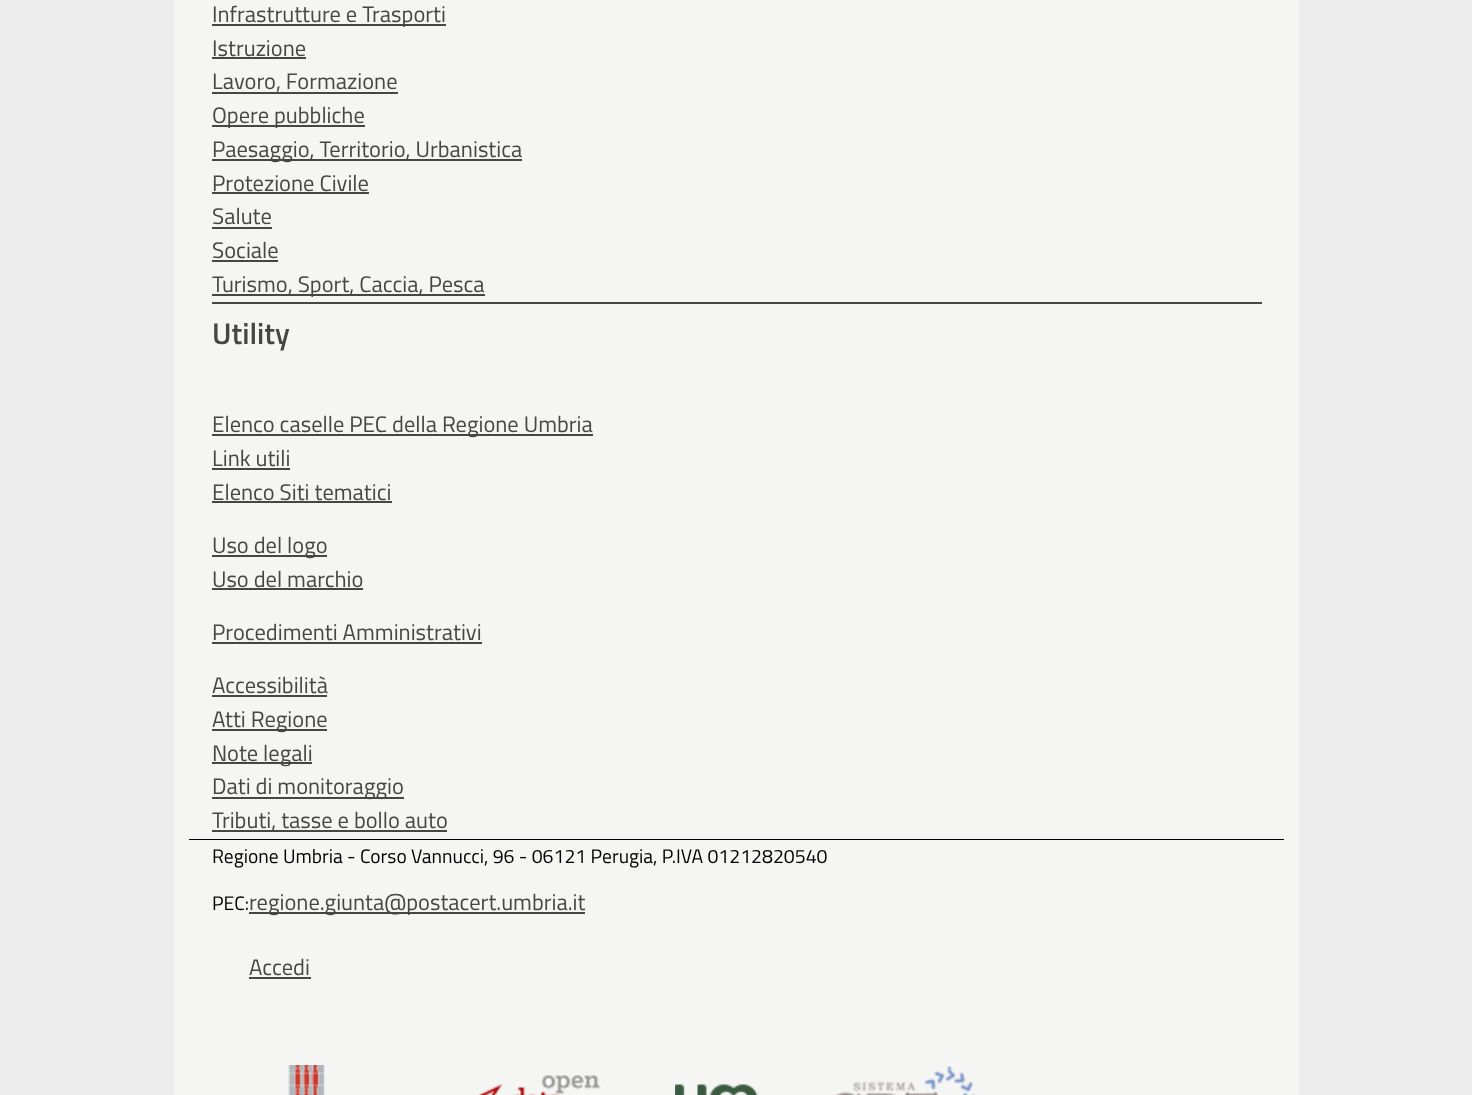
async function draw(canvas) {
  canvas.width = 1472;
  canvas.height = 1095;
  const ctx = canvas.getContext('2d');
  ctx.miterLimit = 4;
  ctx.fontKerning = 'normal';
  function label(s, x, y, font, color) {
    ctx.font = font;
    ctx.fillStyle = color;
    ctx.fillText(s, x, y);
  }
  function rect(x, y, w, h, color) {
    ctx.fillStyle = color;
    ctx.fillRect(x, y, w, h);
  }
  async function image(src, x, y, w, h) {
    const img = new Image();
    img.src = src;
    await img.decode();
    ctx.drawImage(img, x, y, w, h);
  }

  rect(0, 0, 1472, 1095, '#ededed');
  rect(174, 0, 1125, 1095, '#f5f5f4');
  rect(189, 839, 1095, 1, '#000');
  rect(212, 24, 234, 2, '#464646');
  label('Infrastrutture e Trasporti', 212, 22, '22.5px Titillium Web', '#464646');
  label('Istruzione', 212, 56, '22.5px Titillium Web', '#464646');
  rect(212, 57, 94, 2, '#464646');
  label('Lavoro, Formazione', 212, 89, '22.5px Titillium Web', '#464646');
  rect(212, 92, 186, 2, '#464646');
  rect(212, 125, 153, 2, '#464646');
  label('Opere pubbliche', 212, 123, '22.5px Titillium Web', '#464646');
  rect(212, 159, 310, 2, '#464646');
  label('Paesaggio, Territorio, Urbanistica', 212, 157, '22.5px Titillium Web', '#464646');
  label('Protezione Civile', 212, 191, '22.5px Titillium Web', '#464646');
  rect(212, 192, 157, 2, '#464646');
  label('Salute', 212, 224, '22.5px Titillium Web', '#464646');
  rect(212, 227, 60, 2, '#464646');
  label('Sociale', 212, 258, '22.5px Titillium Web', '#464646');
  rect(212, 260, 66, 2, '#464646');
  rect(212, 294, 273, 2, '#464646');
  label('Turismo, Sport, Caccia, Pesca', 212, 292, '22.5px Titillium Web', '#464646');
  rect(212, 302, 1050, 2, '#464646');
  label('Utility', 212, 344, '600 30px Titillium Web', '#464646');
  rect(212, 434, 381, 2, '#464646');
  label('Elenco caselle PEC della Regione Umbria', 212, 432, '22.5px Titillium Web', '#464646');
  label('Link utili', 212, 466, '22.5px Titillium Web', '#464646');
  rect(212, 468, 78, 2, '#464646');
  label('Elenco Siti tematici', 212, 500, '22.5px Titillium Web', '#464646');
  rect(212, 501, 180, 2, '#464646');
  rect(212, 555, 115, 2, '#464646');
  label('Uso del logo', 212, 553, '22.5px Titillium Web', '#464646');
  label('Uso del marchio', 212, 587, '22.5px Titillium Web', '#464646');
  rect(212, 588, 151, 2, '#464646');
  label('Procedimenti Amministrativi', 212, 640, '22.5px Titillium Web', '#464646');
  rect(212, 642, 270, 2, '#464646');
  label('Accessibilità', 212, 693, '22.5px Titillium Web', '#464646');
  rect(212, 695, 115, 2, '#464646');
  rect(212, 729, 115, 2, '#464646');
  label('Atti Regione', 212, 727, '22.5px Titillium Web', '#464646');
  rect(212, 762, 100, 2, '#464646');
  label('Note legali', 212, 761, '22.5px Titillium Web', '#464646');
  rect(212, 797, 192, 2, '#464646');
  label('Dati di monitoraggio', 212, 794, '22.5px Titillium Web', '#464646');
  rect(212, 830, 235, 2, '#464646');
  label('Tributi, tasse e bollo auto', 212, 828, '22.5px Titillium Web', '#464646');
  label('Regione Umbria - Corso Vannucci, 96 - 06121 Perugia, P.IVA 01212820540', 212, 863, '19.5px Titillium Web', '#000');
  label('PEC:', 212, 910, '19.5px Titillium Web', '#000');
  rect(249, 912, 336, 2, '#464646');
  label('regione.giunta@postacert.umbria.it', 249, 910, '22.5px Titillium Web', '#464646');
  label('Accedi', 249, 975, '22.5px Titillium Web', '#464646');
  rect(249, 977, 62, 2, '#464646');
  await image('assets/img1.png', 288, 1065, 37, 30);
  await image('assets/img2.png', 477, 1075, 124, 20);
  await image('assets/img3.png', 675, 1084, 83, 11);
  await image('assets/img4.png', 835, 1066, 141, 29);
}

draw(document.querySelector('canvas'));
